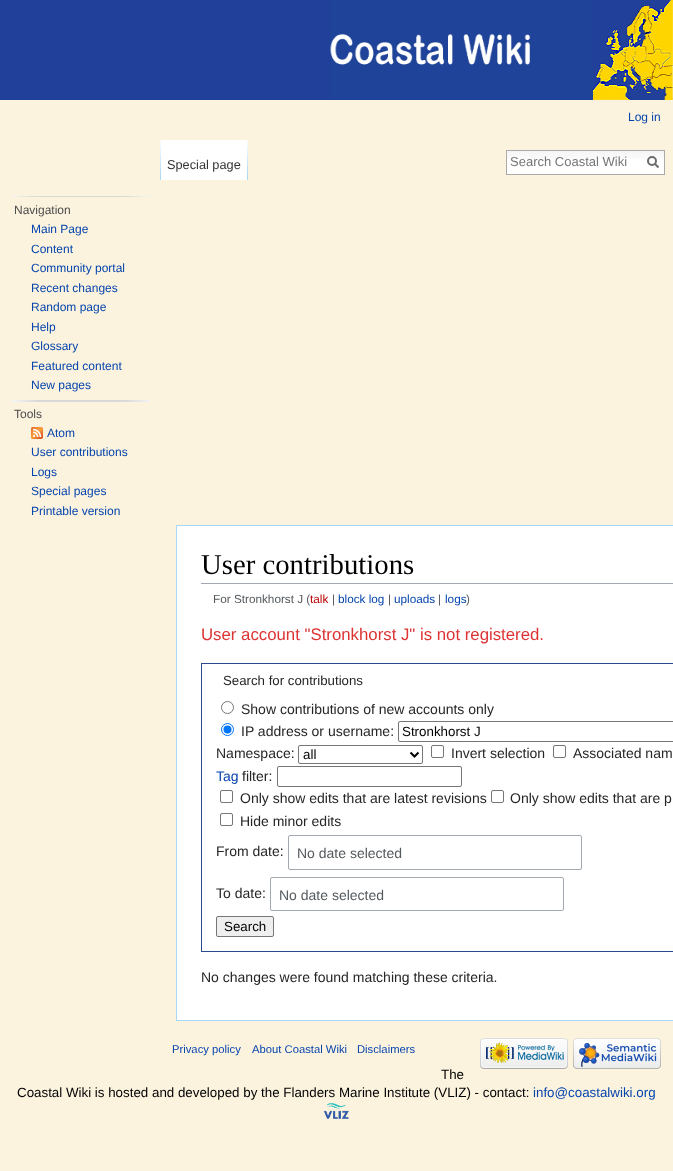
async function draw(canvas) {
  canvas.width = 673;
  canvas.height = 1171;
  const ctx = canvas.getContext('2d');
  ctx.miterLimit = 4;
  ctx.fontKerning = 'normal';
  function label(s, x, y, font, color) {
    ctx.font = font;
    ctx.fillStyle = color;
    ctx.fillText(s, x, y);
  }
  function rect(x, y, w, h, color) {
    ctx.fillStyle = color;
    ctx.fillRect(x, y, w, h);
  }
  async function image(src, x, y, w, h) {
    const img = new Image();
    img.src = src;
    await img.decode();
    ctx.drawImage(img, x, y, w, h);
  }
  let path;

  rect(0, 0, 673, 1171, '#fcf3df');
  rect(0, 0, 330, 100, '#21409a');
  await image('assets/img1.png', 330, 0, 343, 100);
  label('Log in', 628, 121, '12px Liberation Sans', '#0645ad');
  await image('assets/img2.png', 160, 140, 1, 40);
  rect(161, 140, 86, 40, '#fff');
  await image('assets/img3.png', 247, 140, 1, 40);
  label('Special page', 167, 169, '12.75px Liberation Sans', '#333');
  rect(507, 159, 157, 15, '#fff');
  await image('assets/img4.png', 507, 151, 157, 8);
  ctx.strokeStyle = '#aaa';
  ctx.strokeRect(506.5, 150.5, 158, 24);
  label('Search Coastal Wiki', 510, 166, '13px Liberation Sans', '#757575');
  path = new Path2D('M658.5 167.5L654.5 163.5');
  ctx.strokeStyle = '#6c6c6c';
  ctx.lineWidth = 2;
  ctx.stroke(path);
  ctx.beginPath();
  ctx.arc(652, 161, 4, 0, 2 * Math.PI);
  ctx.stroke();
  await image('assets/img5.png', 11, 196, 139, 1);
  label('Navigation', 14, 214, '12px Liberation Sans', '#4d4d4d');
  label('Main Page', 31, 233, '12px Liberation Sans', '#0645ad');
  label('Content', 31, 253, '12px Liberation Sans', '#0645ad');
  label('Community portal', 31, 272, '12px Liberation Sans', '#0645ad');
  label('Recent changes', 31, 292, '12px Liberation Sans', '#0645ad');
  label('Random page', 31, 311, '12px Liberation Sans', '#0645ad');
  label('Help', 31, 331, '12px Liberation Sans', '#0645ad');
  label('Glossary', 31, 350, '12px Liberation Sans', '#0645ad');
  label('Featured content', 31, 370, '12px Liberation Sans', '#0645ad');
  label('New pages', 31, 389, '12px Liberation Sans', '#0645ad');
  await image('assets/img6.png', 11, 400, 139, 2);
  label('Tools', 14, 418, '12px Liberation Sans', '#4d4d4d');
  await image('assets/img7.png', 31, 427, 12, 12);
  label('Atom', 47, 437, '12px Liberation Sans', '#0645ad');
  label('User contributions', 31, 456, '12px Liberation Sans', '#0645ad');
  label('Logs', 31, 476, '12px Liberation Sans', '#0645ad');
  label('Special pages', 31, 495, '12px Liberation Sans', '#0645ad');
  label('Printable version', 31, 515, '12px Liberation Sans', '#0645ad');
  rect(177, 526, 496, 494, '#fff');
  rect(176, 525, 497, 1, '#a7d7f9');
  rect(176, 1020, 497, 1, '#a7d7f9');
  rect(176, 525, 1, 496, '#a7d7f9');
  rect(201, 583, 472, 1, '#a2a9b1');
  label('User contributions', 201, 574, '28.75px Liberation Serif', '#000');
  label('For Stronkhorst J (', 213, 603, '11.75px Liberation Sans', '#54595d');
  label('talk', 310, 603, '11.75px Liberation Sans', '#ba0000');
  label('|', 332, 603, '11.75px Liberation Sans', '#54595d');
  label('block log', 338, 603, '11.75px Liberation Sans', '#0645ad');
  label('|', 388, 603, '11.75px Liberation Sans', '#54595d');
  label('uploads', 394, 603, '11.75px Liberation Sans', '#0645ad');
  label('|', 438, 603, '11.75px Liberation Sans', '#54595d');
  label('logs', 445, 603, '11.75px Liberation Sans', '#0645ad');
  label(')', 466, 603, '11.75px Liberation Sans', '#54595d');
  label('User account "Stronkhorst J" is not registered.', 201, 640, '16.8px Liberation Sans', '#d33');
  ctx.strokeStyle = '#2a4b8d';
  ctx.lineWidth = 1;
  ctx.strokeRect(201.5, 663.5, 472, 288);
  label('Search for contributions', 223, 685, '13.25px Liberation Sans', '#252525');
  ctx.beginPath();
  ctx.arc(227.5, 707.5, 6, 0, 2 * Math.PI);
  ctx.strokeStyle = '#767676';
  ctx.stroke();
  label('Show contributions of new accounts only', 241, 714, '14px Liberation Sans', '#252525');
  ctx.beginPath();
  ctx.arc(227.5, 729.5, 6, 0, 2 * Math.PI);
  ctx.strokeStyle = '#0075ff';
  ctx.stroke();
  ctx.fillStyle = '#0075ff';
  ctx.beginPath();
  ctx.arc(227.5, 729.5, 4, 0, 2 * Math.PI);
  ctx.fill();
  label('IP address or username:', 241, 736, '14px Liberation Sans', '#252525');
  ctx.beginPath();
  ctx.roundRect(398.5, 721.5, 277, 20, 1.5);
  ctx.strokeStyle = '#767676';
  ctx.stroke();
  label('Stronkhorst J', 402, 736, '13.35px Liberation Sans', '#000');
  label('Namespace:', 216, 758, '14px Liberation Sans', '#252525');
  ctx.beginPath();
  ctx.roundRect(298.5, 745.5, 124, 18, 1.5);
  ctx.stroke();
  path = new Path2D('M410.5 752.5L414.5 756.5L418.5 752.5');
  ctx.strokeStyle = '#000';
  ctx.lineWidth = 2;
  ctx.stroke(path);
  label('all', 303, 759, '13.35px Liberation Sans', '#000');
  ctx.beginPath();
  ctx.roundRect(431.5, 745.5, 12, 12, 1.5);
  ctx.strokeStyle = '#767676';
  ctx.lineWidth = 1;
  ctx.stroke();
  label('Invert selection', 451, 758, '14px Liberation Sans', '#252525');
  ctx.beginPath();
  ctx.roundRect(553.5, 745.5, 12, 12, 1.5);
  ctx.stroke();
  label('Associated nam', 573, 758, '14px Liberation Sans', '#252525');
  label('Tag', 216, 781, '14px Liberation Sans', '#0645ad');
  label('filter:', 242, 781, '14px Liberation Sans', '#252525');
  ctx.beginPath();
  ctx.roundRect(277.5, 766.5, 184, 20, 1.5);
  ctx.stroke();
  ctx.beginPath();
  ctx.roundRect(220.5, 790.5, 12, 12, 1.5);
  ctx.stroke();
  label('Only show edits that are latest revisions', 240, 803, '14px Liberation Sans', '#252525');
  ctx.beginPath();
  ctx.roundRect(491.5, 790.5, 12, 12, 1.5);
  ctx.stroke();
  label('Only show edits that are p', 510, 803, '14px Liberation Sans', '#252525');
  ctx.beginPath();
  ctx.roundRect(220.5, 813.5, 12, 12, 1.5);
  ctx.stroke();
  label('Hide minor edits', 240, 826, '14px Liberation Sans', '#252525');
  label('From date:', 216, 856, '14px Liberation Sans', '#252525');
  ctx.beginPath();
  ctx.roundRect(288.5, 835.5, 293, 34, 1.5);
  ctx.strokeStyle = '#a2a9b1';
  ctx.stroke();
  label('No date selected', 297, 858, '14px Liberation Sans', '#54595d');
  label('To date:', 216, 898, '14px Liberation Sans', '#252525');
  ctx.beginPath();
  ctx.roundRect(270.5, 877.5, 293, 33, 1.5);
  ctx.stroke();
  label('No date selected', 279, 900, '14px Liberation Sans', '#54595d');
  ctx.fillStyle = '#efefef';
  ctx.beginPath();
  ctx.roundRect(216.5, 916.5, 57, 20, 1.5);
  ctx.fill();
  ctx.strokeStyle = '#767676';
  ctx.stroke();
  label('Search', 224, 931, '13.35px Liberation Sans', '#000');
  label('No changes were found matching these criteria.', 201, 982, '14px Liberation Sans', '#252525');
  label('Privacy policy', 172, 1053, '11.25px Liberation Sans', '#0645ad');
  label('About Coastal Wiki', 252, 1053, '11.25px Liberation Sans', '#0645ad');
  label('Disclaimers', 357, 1053, '11.25px Liberation Sans', '#0645ad');
  await image('assets/img8.png', 480, 1038, 88, 31);
  await image('assets/img9.png', 573, 1038, 88, 31);
  label('The', 441, 1079, '13.35px Liberation Sans', '#000');
  label('Coastal Wiki is hosted and developed by the Flanders Marine Institute (VLIZ) - contact:', 17, 1097, '13.35px Liberation Sans', '#000');
  label('info@coastalwiki.org', 533, 1097, '13.35px Liberation Sans', '#0645ad');
  await image('assets/img10.png', 323, 1103, 26, 16);
}

draw(document.querySelector('canvas'));
